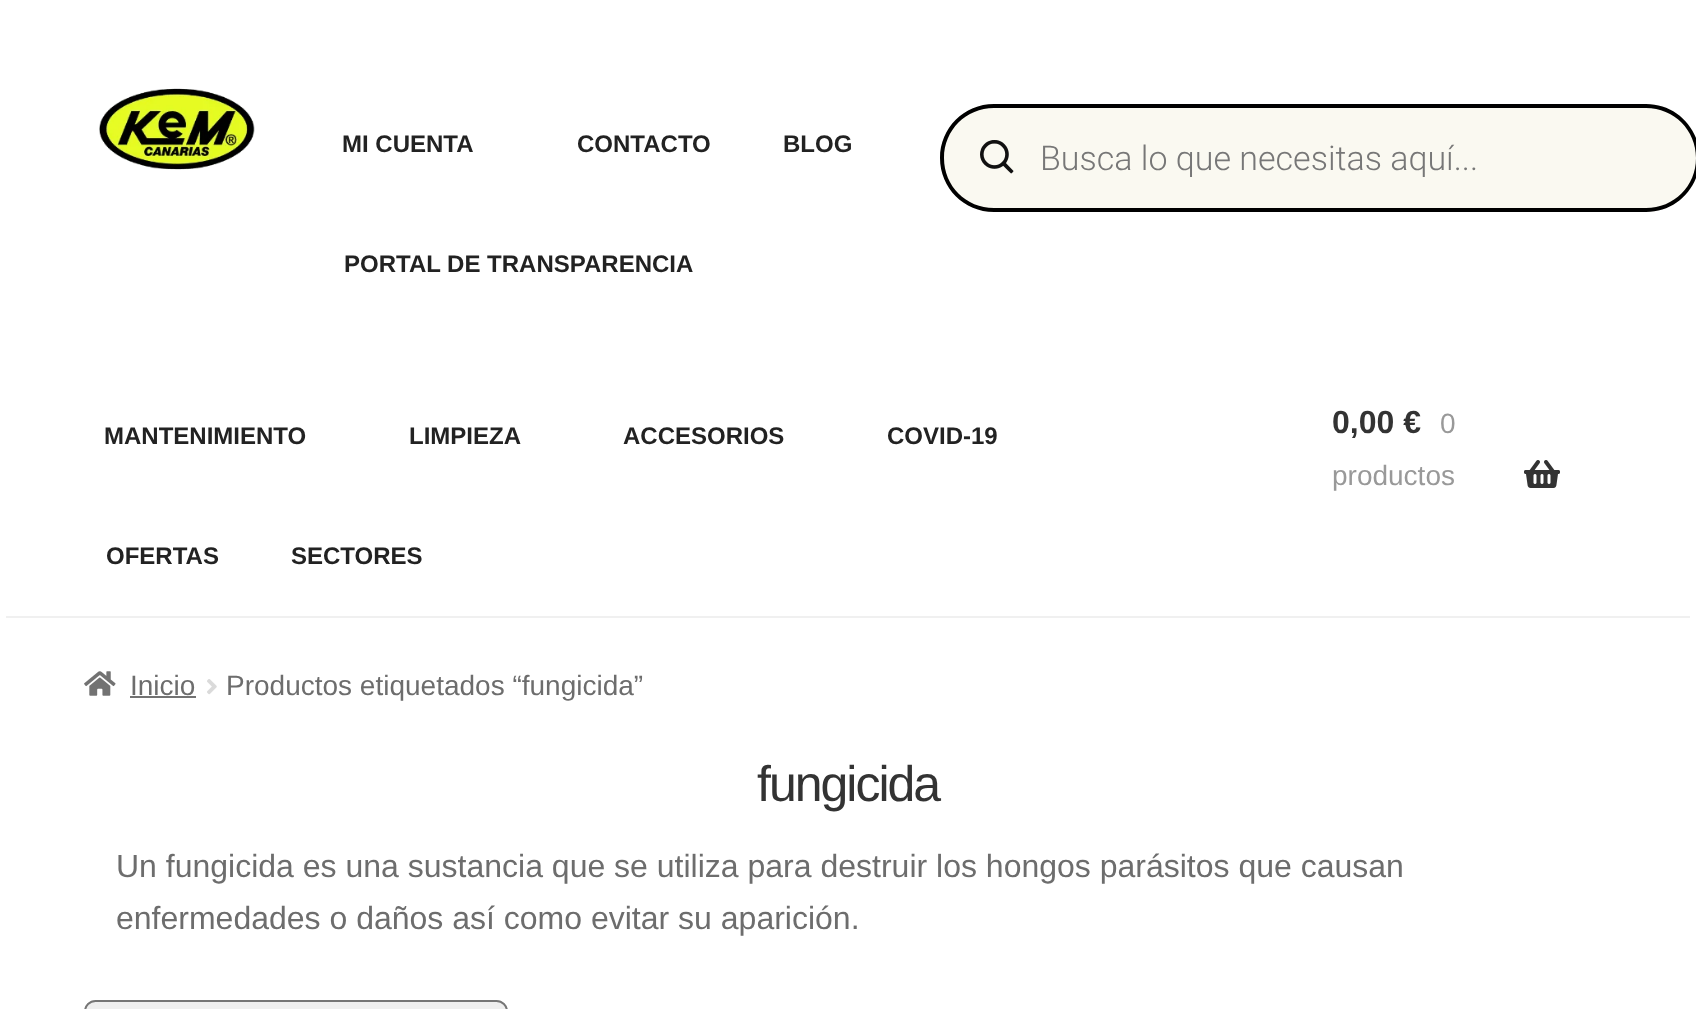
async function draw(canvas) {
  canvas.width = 1696;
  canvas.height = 1009;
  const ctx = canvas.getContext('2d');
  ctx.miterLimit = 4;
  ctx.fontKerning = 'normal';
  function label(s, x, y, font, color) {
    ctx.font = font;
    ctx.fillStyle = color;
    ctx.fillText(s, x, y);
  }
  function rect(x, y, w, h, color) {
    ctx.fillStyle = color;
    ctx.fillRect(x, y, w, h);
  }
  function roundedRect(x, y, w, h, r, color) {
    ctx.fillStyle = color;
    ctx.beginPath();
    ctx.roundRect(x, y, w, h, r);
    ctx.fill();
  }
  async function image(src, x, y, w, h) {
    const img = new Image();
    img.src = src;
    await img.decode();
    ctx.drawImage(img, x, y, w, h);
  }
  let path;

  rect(0, 0, 1696, 1009, '#fff');
  rect(6, 616, 1684, 2, '#f0f0f0');
  await image('assets/img1.png', 99, 88, 156, 82);
  label('MI CUENTA', 342, 152, 'bold 24px Liberation Sans', '#222');
  label('CONTACTO', 577, 152, 'bold 24px Liberation Sans', '#222');
  label('BLOG', 783, 152, 'bold 24px Liberation Sans', '#222');
  label('PORTAL DE TRANSPARENCIA', 344, 272, 'bold 24px Liberation Sans', '#222');
  roundedRect(940, 104, 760, 108, 54, '#faf9f1');
  ctx.fillStyle = '#000';
  path = new Path2D('M994 104C964 104 940 128 940 158C940 188 964 212 994 212H1646C1669 212 1688 198 1696 178V138C1688 118 1669 104 1646 104ZM994 108H1646C1674 108 1696 130 1696 158C1696 186 1674 208 1646 208H994C966 208 944 186 944 158C944 130 966 108 994 108Z');
  ctx.fill(path, 'evenodd');
  await image('assets/img2.png', 980, 140, 34, 34);
  label('Busca lo que necesitas aquí...', 1040, 170, '300 34px Roboto', '#777');
  label('MANTENIMIENTO', 104, 444, 'bold 24px Liberation Sans', '#222');
  label('LIMPIEZA', 409, 444, 'bold 24px Liberation Sans', '#222');
  label('ACCESORIOS', 623, 444, 'bold 24px Liberation Sans', '#222');
  label('COVID-19', 887, 444, 'bold 24px Liberation Sans', '#222');
  label('OFERTAS', 106, 564, 'bold 24px Liberation Sans', '#222');
  label('SECTORES', 291, 564, 'bold 24px Liberation Sans', '#222');
  label('0,00 €', 1332, 433, 'bold 32px Liberation Sans', '#333');
  label('0', 1440, 433, '28px Liberation Sans', '#999');
  label('productos', 1332, 485, '28px Liberation Sans', '#999');
  await image('assets/img3.png', 1524, 460, 36, 28);
  await image('assets/img4.png', 84, 671, 32, 25);
  label('Inicio', 130, 695, '28px Liberation Sans', '#6d6d6d');
  rect(130, 696, 66, 2, '#727272');
  await image('assets/img5.png', 207, 679, 10, 16);
  label('Productos etiquetados “fungicida”', 226, 695, '28px Liberation Sans', '#6d6d6d');
  ctx.letterSpacing = '-2px';
  label('fungicida', 757, 801, '50px Liberation Sans', '#333');
  ctx.letterSpacing = '0px';
  label('Un fungicida es una sustancia que se utiliza para destruir los hongos parásitos que causan', 116, 877, '32px Liberation Sans', '#6d6d6d');
  label('enfermedades o daños así como evitar su aparición.', 116, 929, '32px Liberation Sans', '#6d6d6d');
  ctx.fillStyle = '#efefef';
  ctx.beginPath();
  ctx.roundRect(85, 1001, 422, 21, 11);
  ctx.fill();
  ctx.strokeStyle = '#767676';
  ctx.lineWidth = 2;
  ctx.stroke();
}

draw(document.querySelector('canvas'));
